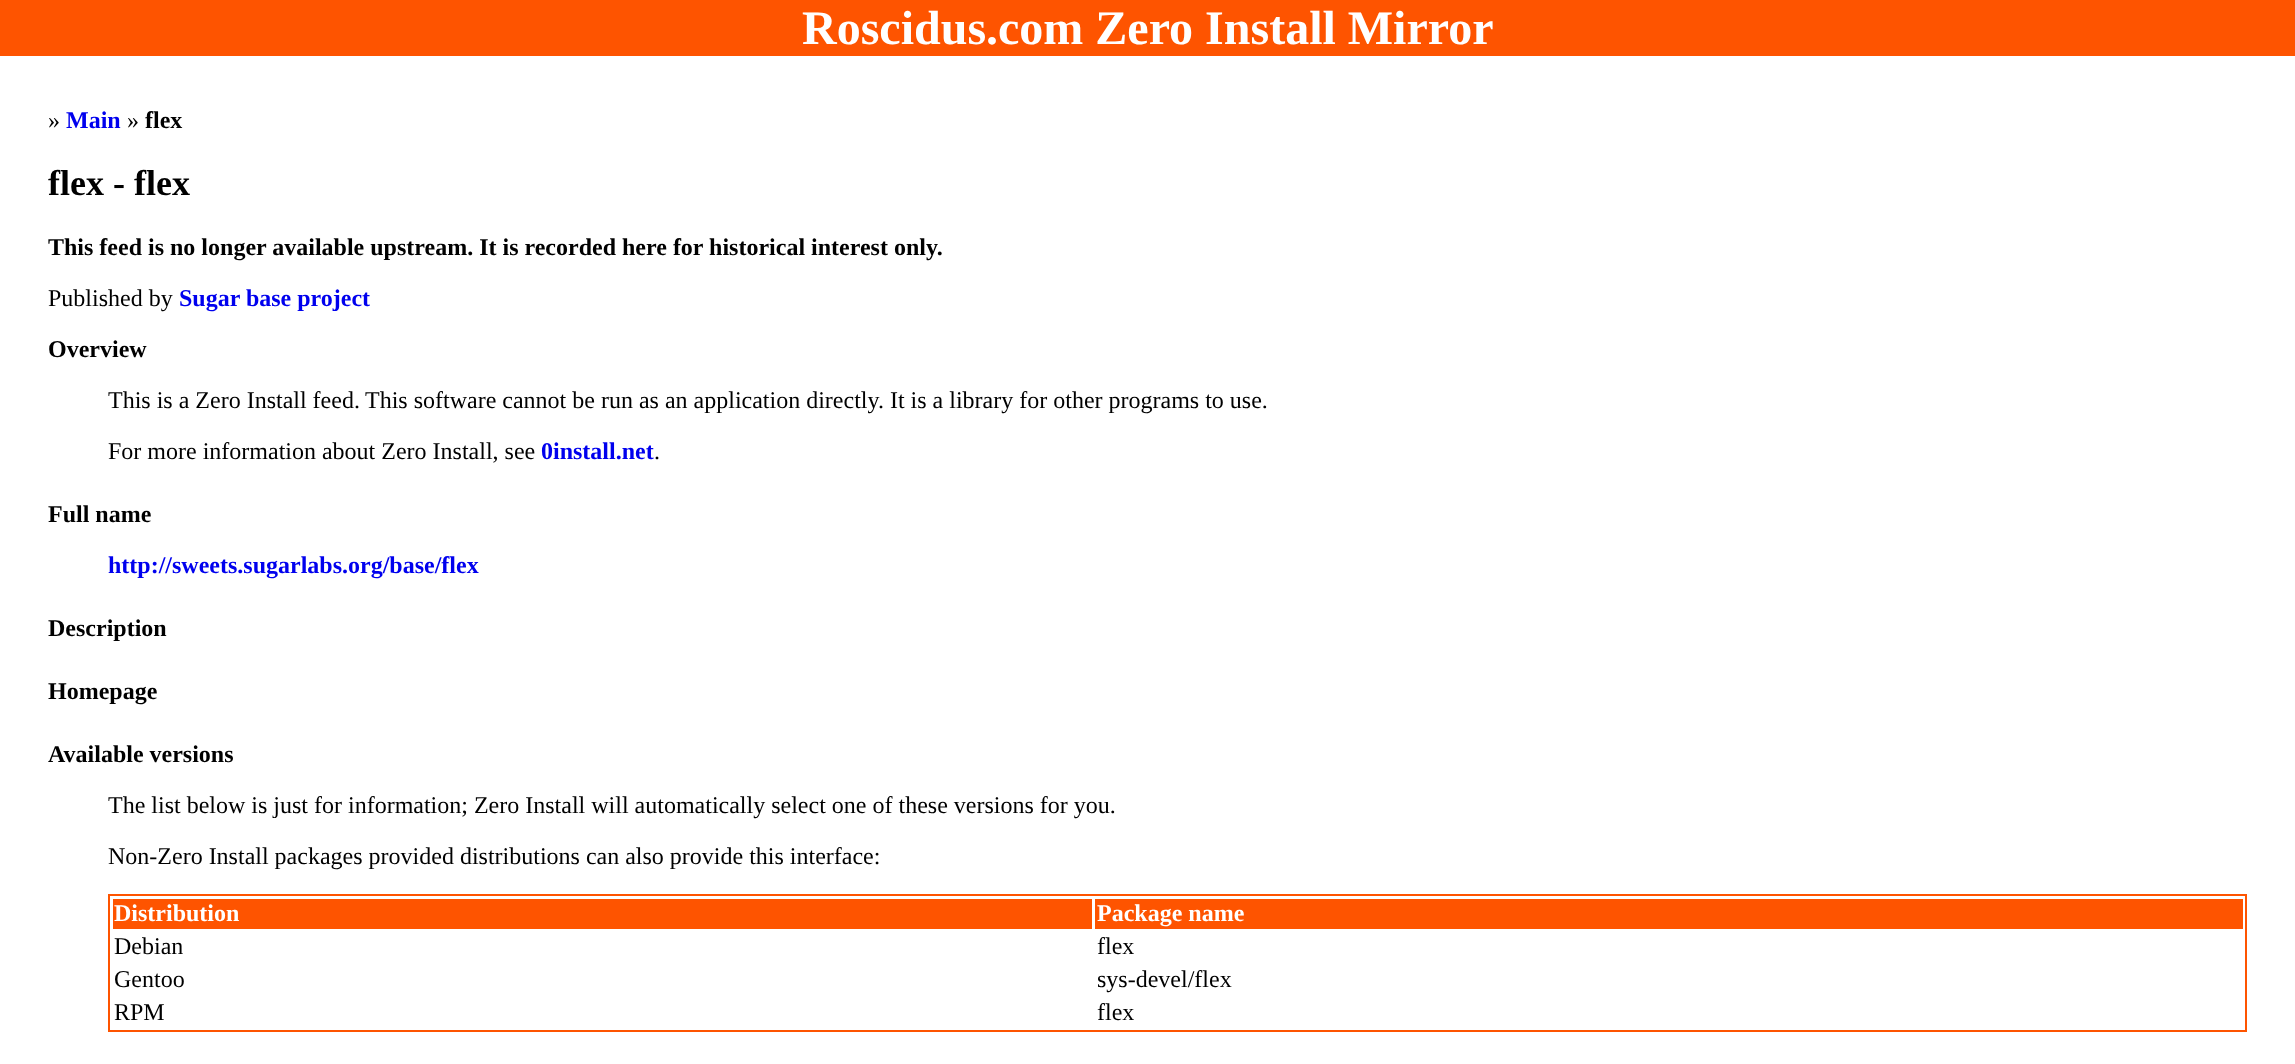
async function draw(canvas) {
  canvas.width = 2295;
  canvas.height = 1064;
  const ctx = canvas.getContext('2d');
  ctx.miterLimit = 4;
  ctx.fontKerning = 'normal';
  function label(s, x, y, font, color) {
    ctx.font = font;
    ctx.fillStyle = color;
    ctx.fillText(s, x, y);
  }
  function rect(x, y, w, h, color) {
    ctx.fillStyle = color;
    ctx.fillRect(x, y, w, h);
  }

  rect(0, 0, 2295, 1064, '#fff');
  rect(0, 0, 2295, 56, '#fe5400');
  label('Roscidus.com Zero Install Mirror', 802, 44, 'bold 48px Liberation Serif', '#fff');
  label('»', 48, 128, '24px Liberation Serif', '#000');
  label('Main', 66, 128, 'bold 24px Liberation Serif', '#00e');
  label('»', 127, 128, '24px Liberation Serif', '#000');
  label('flex', 145, 128, 'bold 24px Liberation Serif', '#000');
  label('flex - flex', 48, 195, 'bold 36px Liberation Serif', '#000');
  label('This feed is no longer available upstream. It is recorded here for historical interest only.', 48, 255, 'bold 24px Liberation Serif', '#000');
  label('Published by', 48, 306, '24px Liberation Serif', '#000');
  label('Sugar base project', 179, 306, 'bold 24px Liberation Serif', '#00e');
  label('Overview', 48, 357, 'bold 24px Liberation Serif', '#000');
  label('This is a Zero Install feed.', 108, 408, '24px Liberation Serif', '#000');
  label('This software cannot be run as an application directly. It is a library for other programs to use.', 365, 408, '24px Liberation Serif', '#000');
  label('For more information about Zero Install, see', 108, 459, '24px Liberation Serif', '#000');
  label('0install.net', 541, 459, 'bold 24px Liberation Serif', '#00e');
  label('.', 654, 459, '24px Liberation Serif', '#000');
  label('Full name', 48, 522, 'bold 24px Liberation Serif', '#000');
  label('http://sweets.sugarlabs.org/base/flex', 108, 573, 'bold 24px Liberation Serif', '#00e');
  label('Description', 48, 636, 'bold 24px Liberation Serif', '#000');
  label('Homepage', 48, 699, 'bold 24px Liberation Serif', '#000');
  label('Available versions', 48, 762, 'bold 24px Liberation Serif', '#000');
  label('The list below is just for information; Zero Install will automatically select one of these versions for you.', 108, 813, '24px Liberation Serif', '#000');
  label('Non-Zero Install packages provided distributions can also provide this interface:', 108, 864, '24px Liberation Serif', '#000');
  ctx.strokeStyle = '#fe5400';
  ctx.lineWidth = 2;
  ctx.strokeRect(109, 895, 2137, 136);
  rect(113, 899, 979, 30, '#fe5400');
  label('Distribution', 114, 921, 'bold 24px Liberation Serif', '#fff');
  rect(1095, 899, 1148, 30, '#fe5400');
  label('Package name', 1097, 921, 'bold 24px Liberation Serif', '#fff');
  label('Debian', 114, 954, '24px Liberation Serif', '#000');
  label('flex', 1097, 954, '24px Liberation Serif', '#000');
  label('Gentoo', 114, 987, '24px Liberation Serif', '#000');
  label('sys-devel/flex', 1097, 987, '24px Liberation Serif', '#000');
  label('RPM', 114, 1020, '24px Liberation Serif', '#000');
  label('flex', 1097, 1020, '24px Liberation Serif', '#000');
}

draw(document.querySelector('canvas'));
